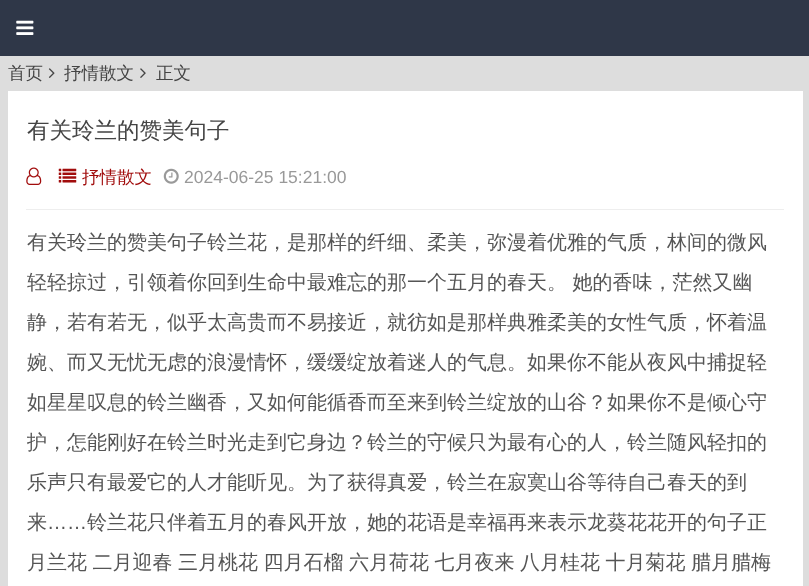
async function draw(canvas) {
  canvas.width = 809;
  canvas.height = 586;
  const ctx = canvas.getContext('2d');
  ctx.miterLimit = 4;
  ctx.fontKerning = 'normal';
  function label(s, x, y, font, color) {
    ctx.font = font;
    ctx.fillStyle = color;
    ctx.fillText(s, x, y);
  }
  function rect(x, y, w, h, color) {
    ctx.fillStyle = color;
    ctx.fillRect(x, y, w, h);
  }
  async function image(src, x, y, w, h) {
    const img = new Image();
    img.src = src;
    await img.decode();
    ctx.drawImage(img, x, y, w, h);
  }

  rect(0, 0, 809, 586, '#ddd');
  rect(0, 0, 809, 56, '#2f3748');
  await image('assets/img1.png', 16, 20, 18, 15);
  label('首页', 8, 79, '500 17.5px WenQuanYi Zen Hei', '#444');
  await image('assets/img2.png', 48, 68, 7, 10);
  label('抒情散文', 64, 79, '500 17.5px WenQuanYi Zen Hei', '#444');
  await image('assets/img3.png', 140, 68, 6, 10);
  label('正文', 156, 79, '500 17.5px WenQuanYi Zen Hei', '#444');
  rect(8, 91, 795, 495, '#fff');
  rect(26, 209, 758, 1, '#eee');
  label('有关玲兰的赞美句子', 27, 138, '500 22.5px WenQuanYi Zen Hei', '#444');
  await image('assets/img4.png', 26, 167, 16, 18);
  await image('assets/img5.png', 58, 168, 19, 15);
  label('抒情散文', 82, 183, '500 17.5px WenQuanYi Zen Hei', '#a10c0c');
  await image('assets/img6.png', 163, 168, 16, 16);
  label('2024-06-25 15:21:00', 184, 183, '17.5px Liberation Sans', '#999');
  label('有关玲兰的赞美句子铃兰花，是那样的纤细、柔美，弥漫着优雅的气质，林间的微风', 27, 249, '500 20px WenQuanYi Zen Hei', '#555');
  ctx.wordSpacing = '-0.5px';
  label('轻轻掠过，引领着你回到生命中最难忘的那一个五月的春天。 她的香味，茫然又幽', 27, 289, '500 20px WenQuanYi Zen Hei', '#555');
  ctx.wordSpacing = '0px';
  label('静，若有若无，似乎太高贵而不易接近，就彷如是那样典雅柔美的女性气质，怀着温', 27, 329, '500 20px WenQuanYi Zen Hei', '#555');
  label('婉、而又无忧无虑的浪漫情怀，缓缓绽放着迷人的气息。如果你不能从夜风中捕捉轻', 27, 369, '500 20px WenQuanYi Zen Hei', '#555');
  label('如星星叹息的铃兰幽香，又如何能循香而至来到铃兰绽放的山谷？如果你不是倾心守', 27, 409, '500 20px WenQuanYi Zen Hei', '#555');
  label('护，怎能刚好在铃兰时光走到它身边？铃兰的守候只为最有心的人，铃兰随风轻扣的', 27, 449, '500 20px WenQuanYi Zen Hei', '#555');
  label('乐声只有最爱它的人才能听见。为了获得真爱，铃兰在寂寞山谷等待自己春天的到', 27, 489, '500 20px WenQuanYi Zen Hei', '#555');
  label('来', 27, 529, '500 20px WenQuanYi Zen Hei', '#555');
  label('……', 47, 529, '20px Liberation Sans', '#555');
  label('铃兰花只伴着五月的春风开放，她的花语是幸福再来表示龙葵花花开的句子正', 87, 529, '500 20px WenQuanYi Zen Hei', '#555');
  ctx.wordSpacing = '-0.5px';
  label('月兰花 二月迎春 三月桃花 四月石榴 六月荷花 七月夜来 八月桂花 十月菊花 腊月腊梅', 27, 569, '500 20px WenQuanYi Zen Hei', '#555');
}

draw(document.querySelector('canvas'));
